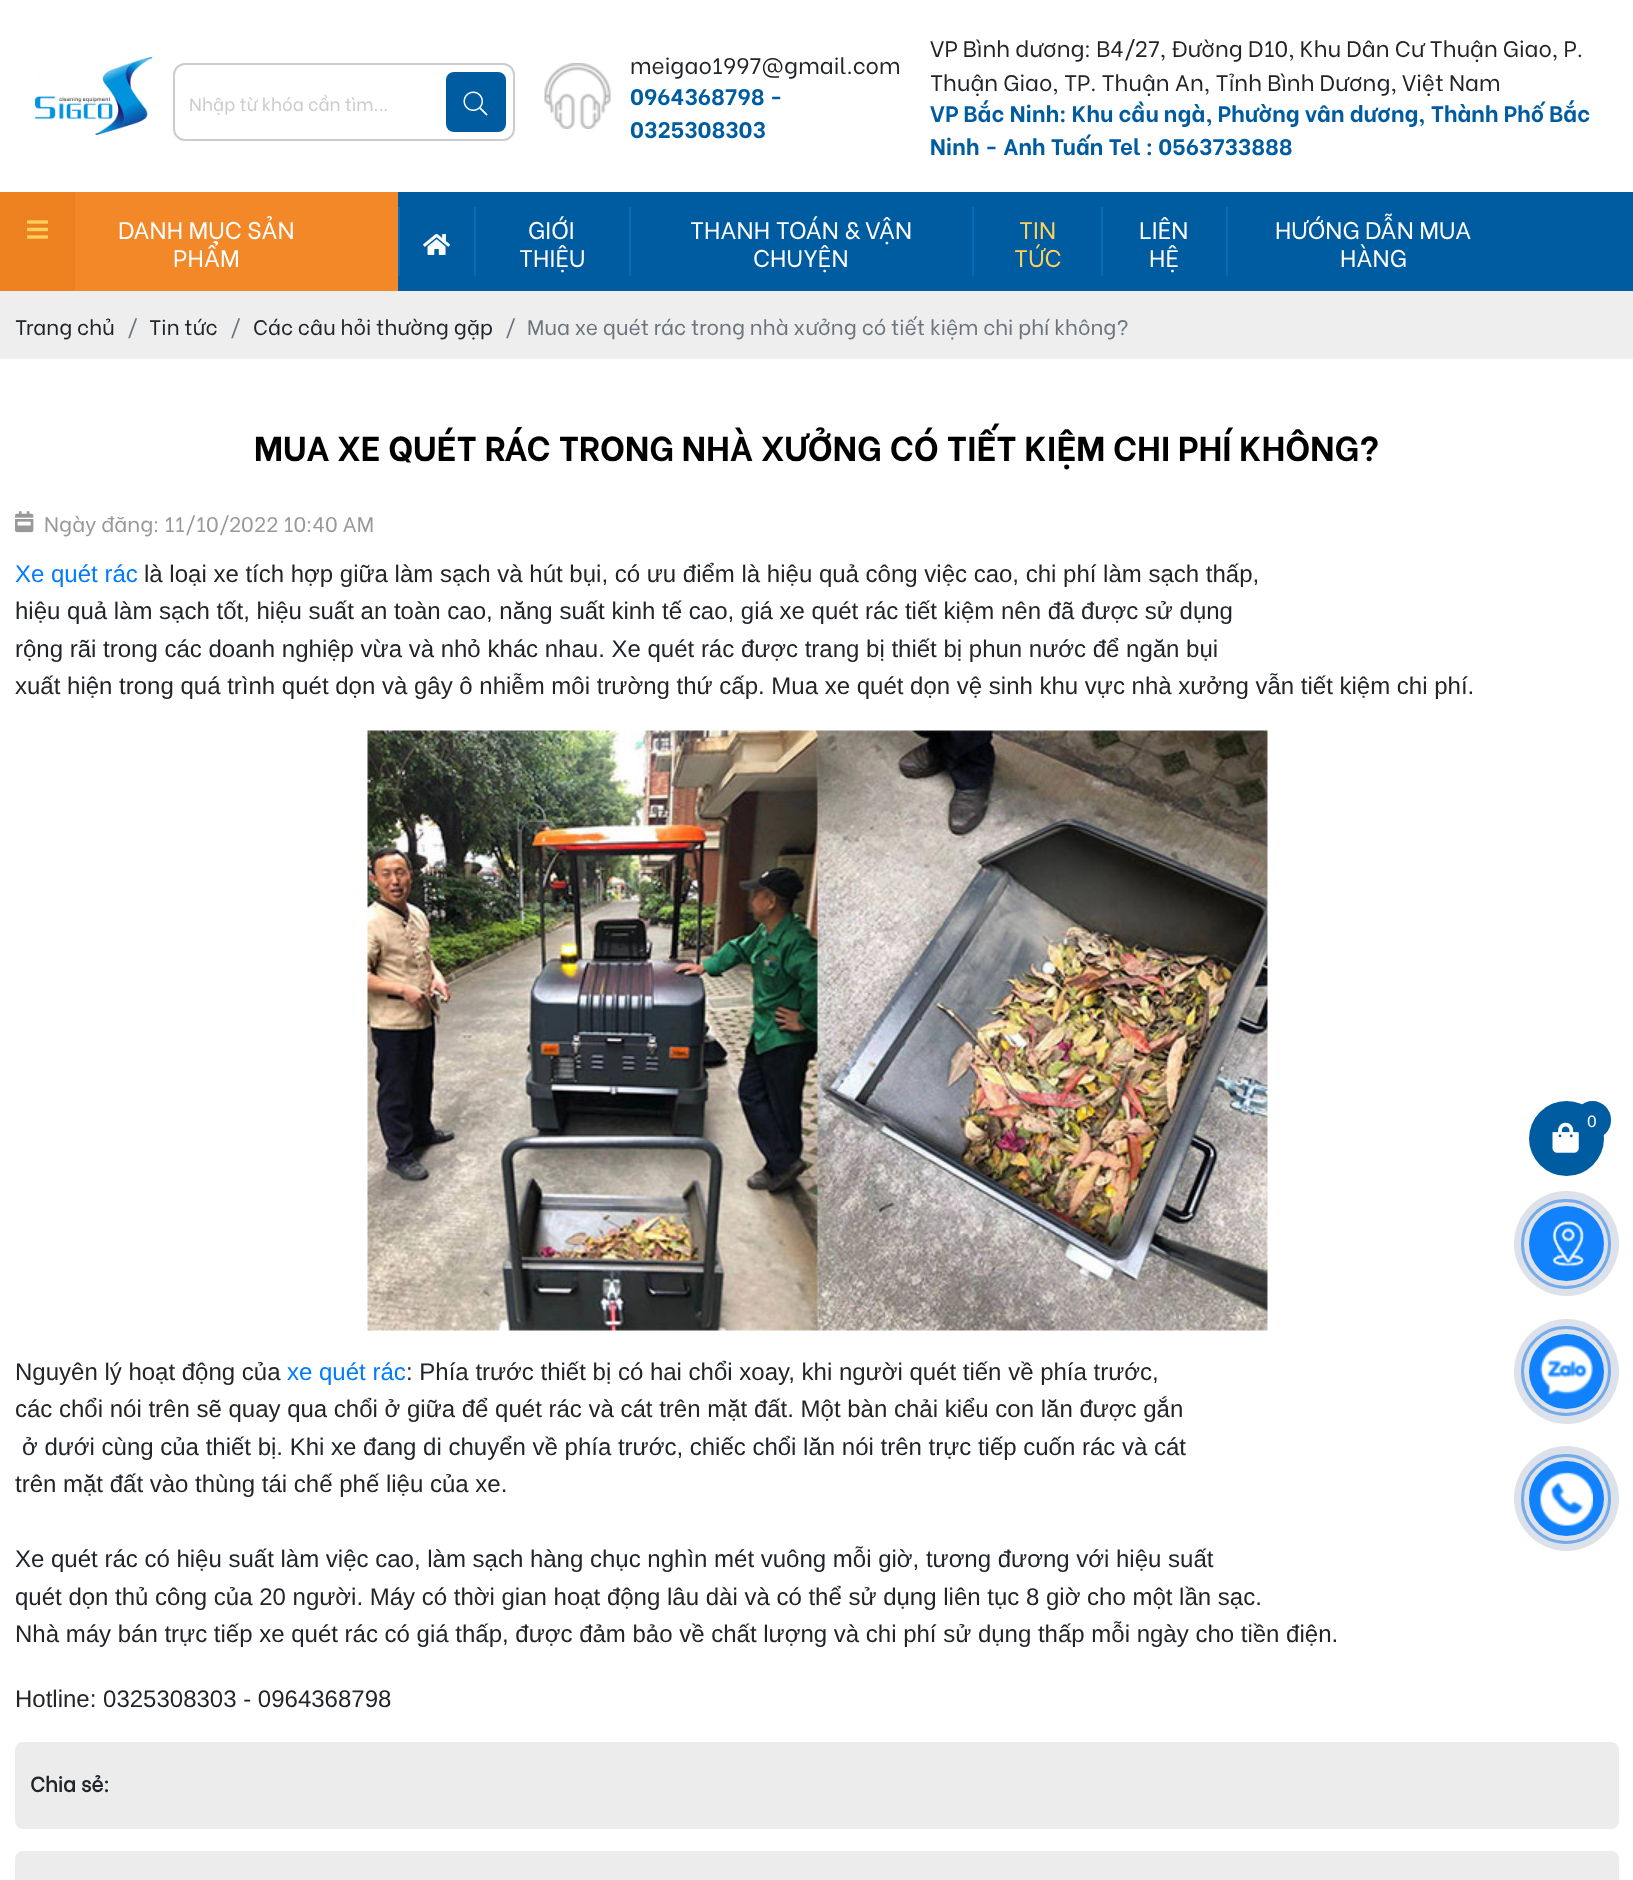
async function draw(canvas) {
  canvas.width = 1633;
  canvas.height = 1880;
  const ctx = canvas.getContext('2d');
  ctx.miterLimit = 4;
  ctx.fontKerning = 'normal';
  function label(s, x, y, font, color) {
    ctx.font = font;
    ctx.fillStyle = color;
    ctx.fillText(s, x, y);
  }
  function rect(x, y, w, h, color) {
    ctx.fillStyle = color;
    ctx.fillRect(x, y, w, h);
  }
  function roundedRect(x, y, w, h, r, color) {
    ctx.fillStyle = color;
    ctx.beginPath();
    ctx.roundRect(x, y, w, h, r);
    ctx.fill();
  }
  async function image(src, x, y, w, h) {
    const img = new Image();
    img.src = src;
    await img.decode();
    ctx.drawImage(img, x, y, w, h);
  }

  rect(0, 0, 1633, 1880, '#fff');
  await image('assets/img1.png', 35, 57, 118, 78);
  ctx.beginPath();
  ctx.roundRect(174, 64, 340, 76, 11);
  ctx.strokeStyle = '#ccc';
  ctx.lineWidth = 2;
  ctx.stroke();
  label('Nhập từ khóa cần tìm...', 189, 111, '18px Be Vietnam', '#ccc');
  roundedRect(446, 72, 60, 60, 8, '#005ca1');
  await image('assets/img2.png', 463, 91, 25, 25);
  await image('assets/img3.png', 544, 63, 67, 66);
  label('meigao1997@gmail.com', 630, 74, '22.5px Be Vietnam', '#212529');
  label('0964368798 -', 630, 105, 'bold 22.5px Be Vietnam', '#005ca1');
  label('0325308303', 630, 138, 'bold 22.5px Be Vietnam', '#005ca1');
  label('VP Bình dương: B4/27, Đường D10, Khu Dân Cư Thuận Giao, P.', 930, 57, '22.5px Be Vietnam', '#212529');
  label('Thuận Giao, TP. Thuận An, Tỉnh Bình Dương, Việt Nam', 930, 91, '22.5px Be Vietnam', '#212529');
  label('VP Bắc Ninh: Khu cầu ngà, Phường vân dương, Thành Phố Bắc', 930, 122, 'bold 22.5px Be Vietnam', '#005ca1');
  label('Ninh - Anh Tuấn Tel : 0563733888', 930, 155, 'bold 22.5px Be Vietnam', '#005ca1');
  rect(398, 192, 1235, 99, '#005ca1');
  rect(75, 192, 323, 99, '#f38828');
  rect(0, 192, 75, 99, '#ed8120');
  await image('assets/img4.png', 27, 220, 21, 19);
  label('DANH MỤC SẢN', 118, 239, '24px Be Vietnam', '#fff');
  label('PHẨM', 173, 267, '24px Be Vietnam', '#fff');
  rect(398, 207, 2, 69, '#076bb6');
  await image('assets/img5.png', 423, 234, 27, 21);
  rect(474, 207, 2, 69, '#076bb6');
  label('GIỚI', 528, 239, '24px Be Vietnam', '#fff');
  label('THIỆU', 519, 267, '24px Be Vietnam', '#fff');
  rect(629, 207, 2, 69, '#076bb6');
  label('THANH TOÁN & VẬN', 690, 239, '24px Be Vietnam', '#fff');
  label('CHUYỆN', 753, 267, '24px Be Vietnam', '#fff');
  rect(972, 207, 2, 69, '#076bb6');
  label('TIN', 1019, 239, '24px Be Vietnam', '#fed15c');
  label('TỨC', 1014, 267, '24px Be Vietnam', '#fed15c');
  rect(1101, 207, 2, 69, '#076bb6');
  label('LIÊN', 1139, 239, '24px Be Vietnam', '#fff');
  label('HỆ', 1149, 267, '24px Be Vietnam', '#fff');
  rect(1226, 207, 2, 69, '#076bb6');
  label('HƯỚNG DẪN MUA', 1275, 239, '24px Be Vietnam', '#fff');
  label('HÀNG', 1340, 267, '24px Be Vietnam', '#fff');
  rect(0, 291, 1633, 68, '#eee');
  label('Trang chủ', 15, 335, '21px Be Vietnam', '#212529');
  label('/', 127, 335, '21px Be Vietnam', '#6c757d');
  label('Tin tức', 149, 335, '21px Be Vietnam', '#212529');
  label('/', 230, 335, '21px Be Vietnam', '#6c757d');
  label('Các câu hỏi thường gặp', 253, 335, '21px Be Vietnam', '#212529');
  label('/', 505, 335, '21px Be Vietnam', '#6c757d');
  label('Mua xe quét rác trong nhà xưởng có tiết kiệm chi phí không?', 527, 335, '21px Be Vietnam', '#6c757d');
  label('MUA XE QUÉT RÁC TRONG NHÀ XƯỞNG CÓ TIẾT KIỆM CHI PHÍ KHÔNG?', 254, 461, 'bold 34.5px Be Vietnam', '#000');
  await image('assets/img6.png', 15, 511, 19, 22);
  label('Ngày đăng: 11/10/2022 10:40 AM', 44, 532, '21px Be Vietnam', '#999');
  label('Xe quét rác', 15, 582, '24px Liberation Sans', '#007bff');
  label('là loại xe tích hợp giữa làm sạch và hút bụi, có ưu điểm là hiệu quả công việc cao, chi phí làm sạch thấp,', 144, 582, '24px Liberation Sans', '#212529');
  label('hiệu quả làm sạch tốt, hiệu suất an toàn cao, năng suất kinh tế cao, giá xe quét rác tiết kiệm nên đã được sử dụng', 15, 619, '24px Liberation Sans', '#212529');
  label('rộng rãi trong các doanh nghiệp vừa và nhỏ khác nhau. Xe quét rác được trang bị thiết bị phun nước để ngăn bụi', 15, 657, '24px Liberation Sans', '#212529');
  label('xuất hiện trong quá trình quét dọn và gây ô nhiễm môi trường thứ cấp. Mua xe quét dọn vệ sinh khu vực nhà xưởng vẫn tiết kiệm chi phí.', 15, 694, '24px Liberation Sans', '#212529');
  await image('assets/img7.png', 367, 730, 901, 601);
  label('Nguyên lý hoạt động của', 15, 1380, '24px Liberation Sans', '#212529');
  label('xe quét rác', 287, 1380, '24px Liberation Sans', '#007bff');
  label(': Phía trước thiết bị có hai chổi xoay, khi người quét tiến về phía trước,', 406, 1380, '24px Liberation Sans', '#212529');
  label('các chổi nói trên sẽ quay qua chổi ở giữa để quét rác và cát trên mặt đất. Một bàn chải kiểu con lăn được gắn', 15, 1417, '24px Liberation Sans', '#212529');
  label('ở dưới cùng của thiết bị. Khi xe đang di chuyển về phía trước, chiếc chổi lăn nói trên trực tiếp cuốn rác và cát', 22, 1455, '24px Liberation Sans', '#212529');
  label('trên mặt đất vào thùng tái chế phế liệu của xe.', 15, 1492, '24px Liberation Sans', '#212529');
  label('Xe quét rác có hiệu suất làm việc cao, làm sạch hàng chục nghìn mét vuông mỗi giờ, tương đương với hiệu suất', 15, 1567, '24px Liberation Sans', '#212529');
  label('quét dọn thủ công của 20 người. Máy có thời gian hoạt động lâu dài và có thể sử dụng liên tục 8 giờ cho một lần sạc.', 15, 1605, '24px Liberation Sans', '#212529');
  label('Nhà máy bán trực tiếp xe quét rác có giá thấp, được đảm bảo về chất lượng và chi phí sử dụng thấp mỗi ngày cho tiền điện.', 15, 1642, '24px Liberation Sans', '#212529');
  label('Hotline: 0325308303 - 0964368798', 15, 1707, '24px Liberation Sans', '#212529');
  roundedRect(15, 1742, 1604, 87, 8, '#ececec');
  label('Chia sẻ:', 30, 1792, 'bold 21px "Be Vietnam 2"', '#212529');
  roundedRect(15, 1851, 1604, 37, 8, '#ececec');
  ctx.fillStyle = '#005ca1';
  ctx.beginPath();
  ctx.arc(1566.5, 1138.5, 37.5, 0, 2 * Math.PI);
  ctx.fill();
  await image('assets/img8.png', 1552, 1122, 27, 31);
  roundedRect(1574, 1101, 37, 38, 18.5, '#005ca1');
  label('0', 1587, 1127, '16px Be Vietnam', '#fff');
  ctx.beginPath();
  ctx.arc(1566, 1244, 43.5, 0, 2 * Math.PI);
  ctx.strokeStyle = '#88c1fe';
  ctx.lineWidth = 3;
  ctx.stroke();
  ctx.fillStyle = '#07296724';
  ctx.beginPath();
  ctx.arc(1566.5, 1243.5, 52.5, 0, 2 * Math.PI);
  ctx.fill();
  ctx.fillStyle = '#1182fc';
  ctx.beginPath();
  ctx.arc(1566.5, 1243.5, 37.5, 0, 2 * Math.PI);
  ctx.fill();
  await image('assets/img9.png', 1552, 1220, 32, 47);
  ctx.beginPath();
  ctx.arc(1566, 1371, 43.5, 0, 2 * Math.PI);
  ctx.stroke();
  ctx.fillStyle = '#07296724';
  ctx.beginPath();
  ctx.arc(1566.5, 1371.5, 52.5, 0, 2 * Math.PI);
  ctx.fill();
  ctx.fillStyle = '#1182fc';
  ctx.beginPath();
  ctx.arc(1566.5, 1371.5, 37.5, 0, 2 * Math.PI);
  ctx.fill();
  await image('assets/img10.png', 1540, 1345, 53, 51);
  ctx.beginPath();
  ctx.arc(1566, 1499, 43.5, 0, 2 * Math.PI);
  ctx.stroke();
  ctx.fillStyle = '#07296724';
  ctx.beginPath();
  ctx.arc(1566.5, 1498.5, 52.5, 0, 2 * Math.PI);
  ctx.fill();
  ctx.fillStyle = '#1182fc';
  ctx.beginPath();
  ctx.arc(1566.5, 1498.5, 37.5, 0, 2 * Math.PI);
  ctx.fill();
  await image('assets/img11.png', 1540, 1472, 53, 54);
}

draw(document.querySelector('canvas'));
